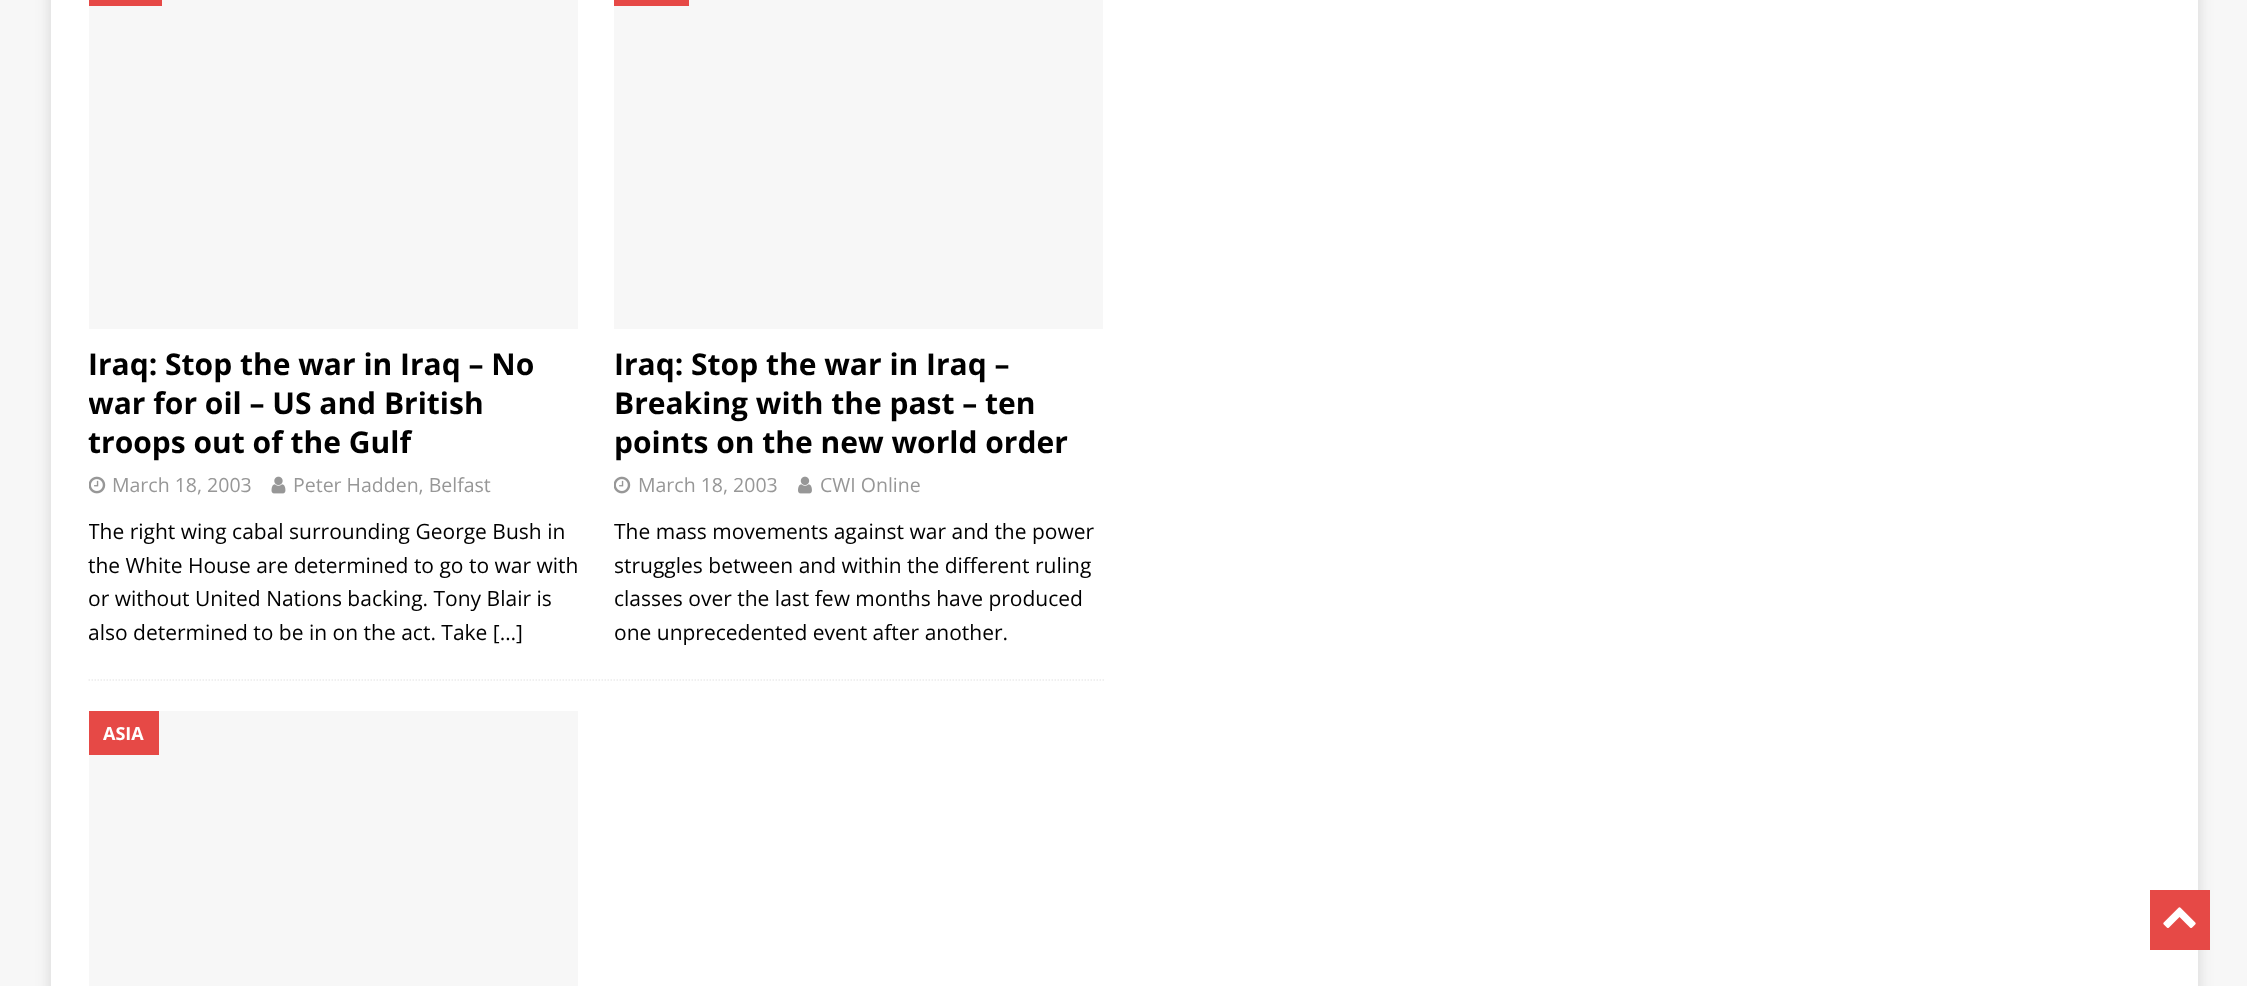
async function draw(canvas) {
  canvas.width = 2247;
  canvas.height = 986;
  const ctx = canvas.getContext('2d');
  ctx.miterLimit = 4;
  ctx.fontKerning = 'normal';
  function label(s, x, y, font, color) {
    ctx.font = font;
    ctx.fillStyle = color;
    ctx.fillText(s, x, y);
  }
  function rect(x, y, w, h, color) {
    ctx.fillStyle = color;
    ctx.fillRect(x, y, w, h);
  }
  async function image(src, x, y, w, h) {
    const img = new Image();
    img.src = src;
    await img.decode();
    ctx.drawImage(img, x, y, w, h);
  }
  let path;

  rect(0, 0, 2247, 986, '#f7f7f7');
  ctx.fillStyle = '#3232322b';
  ctx.filter = 'blur(7.5px)';
  ctx.beginPath();
  ctx.rect(51, -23, 2147, 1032);
  ctx.fill();
  ctx.filter = 'none';
  rect(51, 0, 2147, 986, '#fff');
  path = new Path2D('M88.5 680H1105.5');
  ctx.strokeStyle = '#ebebeb';
  ctx.lineWidth = 1.5;
  ctx.setLineDash([1.5, 1.5]);
  ctx.stroke(path);
  rect(89, 0, 489, 329, '#f7f7f7');
  rect(89, 0, 73, 6, '#e64946');
  label('Iraq: Stop the war in Iraq – No', 88, 375, 'bold 30px Open Sans', '#000');
  ctx.save();
  ctx.beginPath();
  ctx.rect(89, 0, 490, 650);
  ctx.clip();
  label('war for oil – US and British', 88, 414, 'bold 30px Open Sans', '#000');
  ctx.restore();
  label('troops out of the Gulf', 88, 453, 'bold 30px Open Sans', '#000');
  await image('assets/img1.png', 89, 476, 17, 18);
  label('March 18, 2003', 112, 492, '19.5px Open Sans', '#979797');
  await image('assets/img2.png', 271, 476, 15, 18);
  label('Peter Hadden, Belfast', 293, 492, '19.5px Open Sans', '#979797');
  ctx.save();
  ctx.beginPath();
  ctx.rect(89, 0, 490, 650);
  ctx.clip();
  label('The right wing cabal surrounding George Bush in', 88, 539, '21px Open Sans', '#000');
  ctx.restore();
  label('the White House are determined to go to war with', 88, 573, '21px Open Sans', '#000');
  label('or without United Nations backing. Tony Blair is', 88, 606, '21px Open Sans', '#000');
  label('also determined to be in on the act. Take […]', 88, 640, '21px Open Sans', '#000');
  rect(614, 0, 489, 329, '#f7f7f7');
  rect(614, 0, 75, 6, '#e64946');
  label('Iraq: Stop the war in Iraq –', 614, 375, 'bold 30px Open Sans', '#000');
  label('Breaking with the past – ten', 614, 414, 'bold 30px Open Sans', '#000');
  label('points on the new world order', 614, 453, 'bold 30px Open Sans', '#000');
  await image('assets/img1.png', 614, 476, 17, 18);
  label('March 18, 2003', 638, 492, '19.5px Open Sans', '#979797');
  await image('assets/img3.png', 798, 476, 14, 18);
  label('CWI Online', 820, 492, '19.5px Open Sans', '#979797');
  label('The mass movements against war and the power', 614, 539, '21px Open Sans', '#000');
  label('struggles between and within the different ruling', 614, 573, '21px Open Sans', '#000');
  label('classes over the last few months have produced', 614, 606, '21px Open Sans', '#000');
  label('one unprecedented event after another.', 614, 640, '21px Open Sans', '#000');
  rect(89, 711, 489, 275, '#f7f7f7');
  rect(89, 711, 70, 44, '#e64946');
  label('ASIA', 103, 740, 'bold 18px Open Sans', '#fff');
  rect(2150, 890, 60, 60, '#e64946');
  await image('assets/img4.png', 2163, 907, 33, 21);
}

draw(document.querySelector('canvas'));
